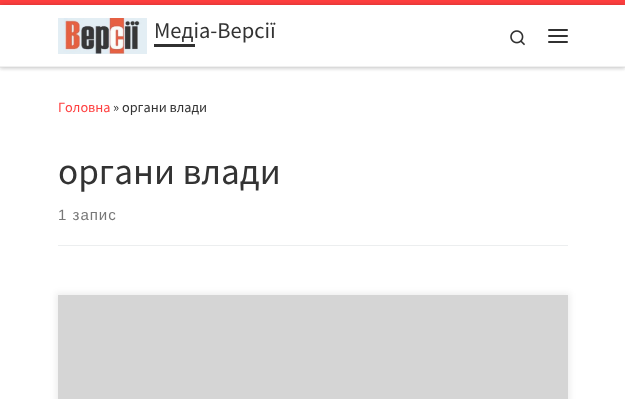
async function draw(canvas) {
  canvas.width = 625;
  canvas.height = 399;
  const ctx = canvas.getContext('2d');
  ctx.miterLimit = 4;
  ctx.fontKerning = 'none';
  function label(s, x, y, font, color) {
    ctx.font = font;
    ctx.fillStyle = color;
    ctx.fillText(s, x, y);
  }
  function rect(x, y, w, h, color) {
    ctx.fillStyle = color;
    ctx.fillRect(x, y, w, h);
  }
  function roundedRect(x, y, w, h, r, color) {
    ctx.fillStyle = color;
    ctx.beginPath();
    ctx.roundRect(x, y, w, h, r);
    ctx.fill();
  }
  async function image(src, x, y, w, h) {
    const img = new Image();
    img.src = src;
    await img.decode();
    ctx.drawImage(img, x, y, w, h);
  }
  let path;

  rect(0, 0, 625, 399, '#fff');
  ctx.save();
  ctx.beginPath();
  ctx.rect(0, 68, 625, 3);
  ctx.clip();
  ctx.fillStyle = '#66666614';
  ctx.filter = 'blur(1px)';
  ctx.beginPath();
  ctx.rect(0, 2, 625, 68);
  ctx.fill();
  ctx.filter = 'none';
  ctx.restore();
  rect(0, 0, 625, 5, '#ff3f3f');
  rect(0, 67, 625, 1, '#efefef');
  ctx.save();
  path = new Path2D('M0 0H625V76H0ZM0 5H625V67H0Z');
  ctx.clip(path, 'evenodd');
  ctx.fillStyle = '#00000033';
  ctx.filter = 'blur(2.5px)';
  ctx.beginPath();
  ctx.rect(0, 5, 625, 62);
  ctx.fill();
  ctx.filter = 'none';
  ctx.restore();
  await image('assets/img1.png', 58, 18, 89, 36);
  label('Медіа-Версії', 154, 38, '22.5px Source Sans Pro', '#333');
  rect(154, 44, 41, 3, '#313131');
  await image('assets/img2.png', 510, 30, 15, 16);
  roundedRect(548, 29, 20, 2, 1, '#313131');
  roundedRect(548, 35, 20, 2, 1, '#313131');
  roundedRect(548, 41, 20, 2, 1, '#313131');
  rect(0, 66, 625, 1, '#f0f0f0');
  label('Головна', 58, 112, '14.25px Source Sans Pro', '#ff3f3f');
  label('» органи влади', 113, 112, '14.25px Source Sans Pro', '#333');
  label('органи влади', 58, 184, '37.25px Source Sans Pro', '#333');
  ctx.letterSpacing = '1px';
  label('1 запис', 58, 220, '15px Liberation Sans', '#777');
  rect(58, 245, 510, 1, '#eceeef');
  ctx.fillStyle = '#00000012';
  ctx.filter = 'blur(3px)';
  ctx.beginPath();
  ctx.rect(56, 293, 514, 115);
  ctx.fill();
  ctx.filter = 'none';
  rect(58, 295, 510, 104, '#d5d5d5');
}

draw(document.querySelector('canvas'));
